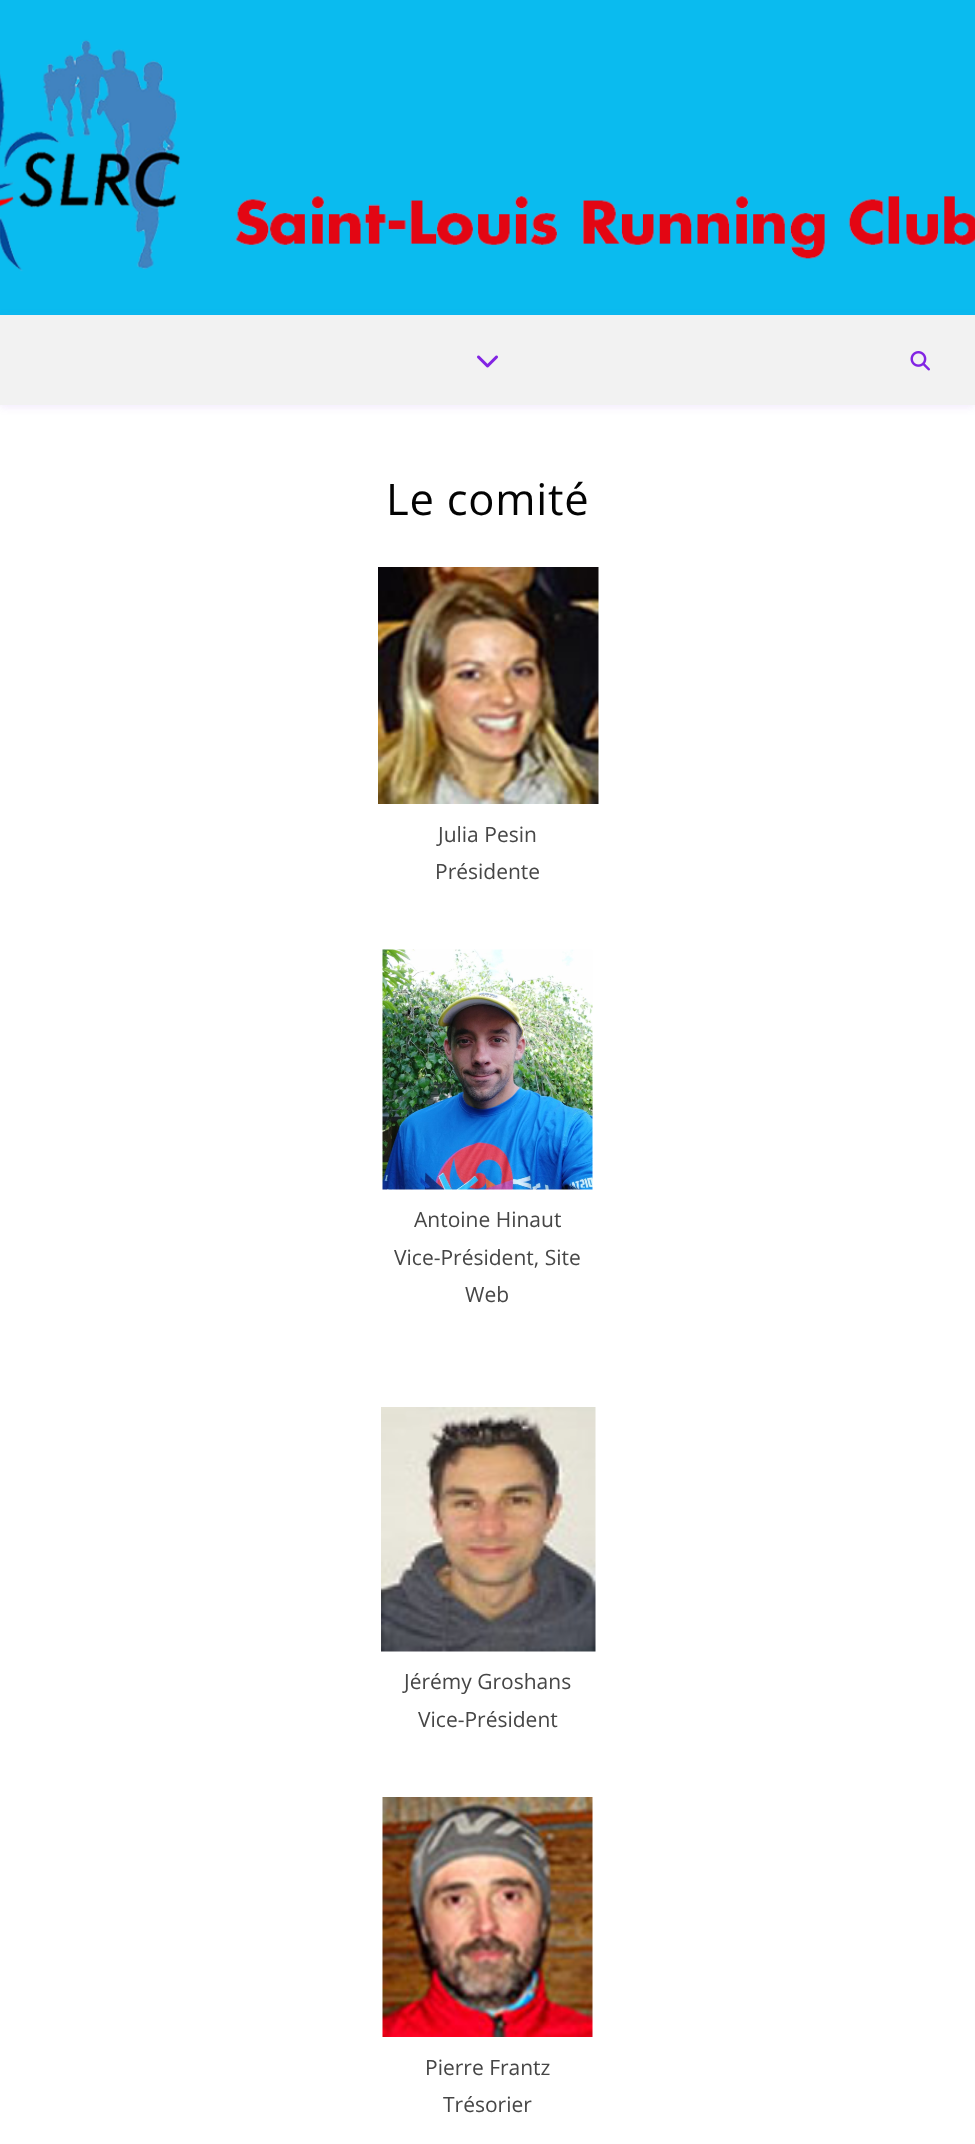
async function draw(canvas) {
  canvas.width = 975;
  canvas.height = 2144;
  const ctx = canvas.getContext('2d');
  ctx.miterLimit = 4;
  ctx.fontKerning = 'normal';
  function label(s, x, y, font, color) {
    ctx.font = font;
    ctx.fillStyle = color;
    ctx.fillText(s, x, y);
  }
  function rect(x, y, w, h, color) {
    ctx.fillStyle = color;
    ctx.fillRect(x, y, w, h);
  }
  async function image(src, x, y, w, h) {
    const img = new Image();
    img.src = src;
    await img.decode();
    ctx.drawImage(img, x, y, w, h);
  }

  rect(0, 0, 975, 2144, '#fff');
  await image('assets/img1.png', 0, 0, 975, 315);
  ctx.fillStyle = '#8224e31a';
  ctx.filter = 'blur(4px)';
  ctx.beginPath();
  ctx.rect(0, 317, 975, 90);
  ctx.fill();
  ctx.filter = 'none';
  rect(0, 315, 975, 90, '#f2f2f2');
  await image('assets/img2.png', 477, 355, 21, 13);
  await image('assets/img3.png', 910, 351, 20, 20);
  ctx.letterSpacing = '0.75px';
  label('Le comité', 386, 515, '43.5px Open Sans', '#030303');
  await image('assets/img4.png', 378, 567, 221, 237);
  ctx.letterSpacing = '0px';
  label('Julia Pesin', 438, 842, '21px Open Sans', '#464646');
  label('Présidente', 435, 879, '21px Open Sans', '#464646');
  await image('assets/img5.png', 382, 949, 211, 241);
  label('Antoine Hinaut', 414, 1227, '21px Open Sans', '#464646');
  label('Vice-Président, Site', 394, 1265, '21px Open Sans', '#464646');
  label('Web', 465, 1302, '21px Open Sans', '#464646');
  await image('assets/img6.png', 381, 1407, 215, 245);
  label('Jérémy Groshans', 404, 1689, '21px Open Sans', '#464646');
  label('Vice-Président', 418, 1727, '21px Open Sans', '#464646');
  await image('assets/img7.png', 382, 1797, 211, 240);
  label('Pierre Frantz', 425, 2075, '21px Open Sans', '#464646');
  label('Trésorier', 443, 2112, '21px Open Sans', '#464646');
}

draw(document.querySelector('canvas'));
